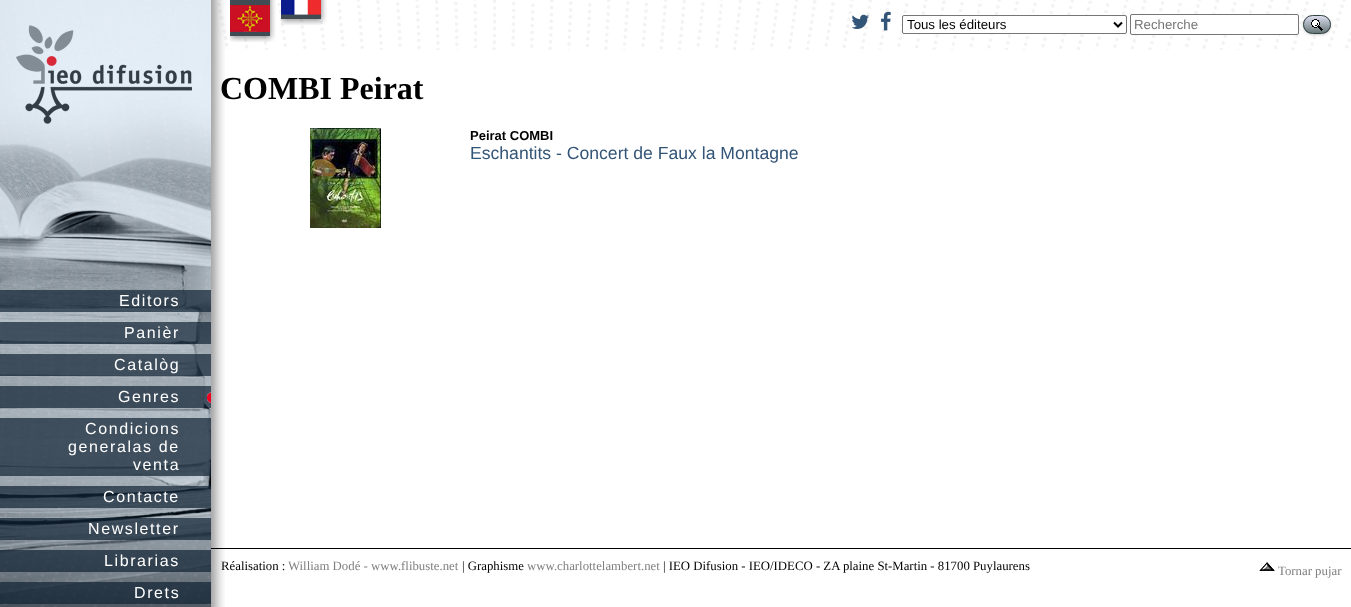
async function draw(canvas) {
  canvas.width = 1351;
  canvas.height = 607;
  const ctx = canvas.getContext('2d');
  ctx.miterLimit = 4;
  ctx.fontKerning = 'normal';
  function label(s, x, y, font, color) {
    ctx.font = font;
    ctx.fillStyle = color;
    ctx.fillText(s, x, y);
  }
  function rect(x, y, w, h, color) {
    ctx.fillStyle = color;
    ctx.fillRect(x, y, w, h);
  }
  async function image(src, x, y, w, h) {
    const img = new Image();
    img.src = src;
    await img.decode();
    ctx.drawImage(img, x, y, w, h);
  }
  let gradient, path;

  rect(0, 0, 1351, 607, '#fff');
  await image('assets/img1.png', 211, 0, 14, 607);
  await image('assets/img2.png', 217, 0, 1134, 50);
  await image('assets/img3.png', 230, 0, 46, 42);
  await image('assets/img4.png', 281, 0, 46, 25);
  await image('assets/img5.png', 851, 14, 18, 15);
  await image('assets/img6.png', 881, 11, 10, 20);
  ctx.beginPath();
  ctx.roundRect(902.5, 15.5, 224, 18, 1.5);
  ctx.fill();
  ctx.strokeStyle = '#767676';
  ctx.stroke();
  path = new Path2D('M1114 22.5L1118 26.5L1122 22.5');
  ctx.strokeStyle = '#000';
  ctx.lineWidth = 2;
  ctx.stroke(path);
  label('Tous les éditeurs', 907, 29, '13.25px Liberation Sans', '#000');
  ctx.fillStyle = '#fff';
  ctx.beginPath();
  ctx.roundRect(1130.5, 14.5, 168, 20, 1.5);
  ctx.fill();
  ctx.strokeStyle = '#767676';
  ctx.lineWidth = 1;
  ctx.stroke();
  label('Recherche', 1134, 29, '13.25px Liberation Sans', '#757575');
  ctx.fillStyle = '#00000033';
  ctx.filter = 'blur(1px)';
  ctx.beginPath();
  ctx.roundRect(1303, 16, 28, 19, 9.5);
  ctx.fill();
  ctx.filter = 'none';
  ctx.save();
  ctx.beginPath();
  ctx.roundRect(1303, 15, 28, 19, 9.5);
  ctx.clip();
  gradient = ctx.createLinearGradient(1304, 16, 1304, 33);
  gradient.addColorStop(0, '#dde');
  gradient.addColorStop(1, '#677');
  ctx.fillStyle = gradient;
  ctx.fillRect(1303, 16, 28, 17);
  ctx.restore();
  ctx.beginPath();
  ctx.roundRect(1303.5, 15.5, 27, 18, 9);
  ctx.strokeStyle = '#344';
  ctx.stroke();
  await image('assets/img7.png', 1311, 19, 12, 12);
  label('COMBI Peirat', 220, 99, 'bold 32px Liberation Serif', '#000');
  await image('assets/img8.png', 310, 128, 71, 100);
  label('Peirat COMBI', 470, 140, 'bold 13px Liberation Sans', '#000');
  label('Eschantits - Concert de Faux la Montagne', 470, 159, '17.6px Liberation Sans', '#357');
  await image('assets/img9.png', 0, 0, 211, 607);
  rect(0, 290, 211, 22, '#112233b3');
  ctx.letterSpacing = '1.6px';
  label('Editors', 119, 306, '16px Liberation Sans', '#fff');
  rect(0, 322, 211, 22, '#112233b3');
  label('Panièr', 124, 338, '16px Liberation Sans', '#fff');
  rect(0, 354, 211, 22, '#112233b3');
  label('Catalòg', 114, 370, '16px Liberation Sans', '#fff');
  rect(0, 386, 211, 22, '#112233b3');
  await image('assets/img10.png', 207, 392, 4, 11);
  label('Genres', 118, 402, '16px Liberation Sans', '#fff');
  rect(0, 418, 211, 58, '#112233b3');
  label('Condicions', 85, 434, '16px Liberation Sans', '#fff');
  label('generalas de', 68, 452, '16px Liberation Sans', '#fff');
  label('venta', 133, 470, '16px Liberation Sans', '#fff');
  rect(0, 486, 211, 22, '#112233b3');
  label('Contacte', 103, 502, '16px Liberation Sans', '#fff');
  rect(0, 518, 211, 22, '#112233b3');
  label('Newsletter', 88, 534, '16px Liberation Sans', '#fff');
  rect(0, 550, 211, 22, '#112233b3');
  label('Librarias', 104, 566, '16px Liberation Sans', '#fff');
  rect(0, 582, 211, 22, '#112233b3');
  label('Drets', 134, 598, '16px Liberation Sans', '#fff');
  rect(211, 548, 1140, 1, '#000');
  ctx.letterSpacing = '0px';
  label('Réalisation :', 221, 570, '12.8px Liberation Serif', '#000');
  label('William Dodé - www.flibuste.net', 288, 570, '12.8px Liberation Serif', '#808080');
  label('| Graphisme', 462, 570, '12.8px Liberation Serif', '#000');
  label('www.charlottelambert.net', 527, 570, '12.8px Liberation Serif', '#808080');
  label('| IEO Difusion - IEO/IDECO - ZA plaine St-Martin - 81700 Puylaurens', 663, 570, '12.8px Liberation Serif', '#000');
  await image('assets/img11.png', 1259, 562, 16, 9);
  label('Tornar pujar', 1278, 575, '12.8px Liberation Serif', '#808080');
}

draw(document.querySelector('canvas'));
